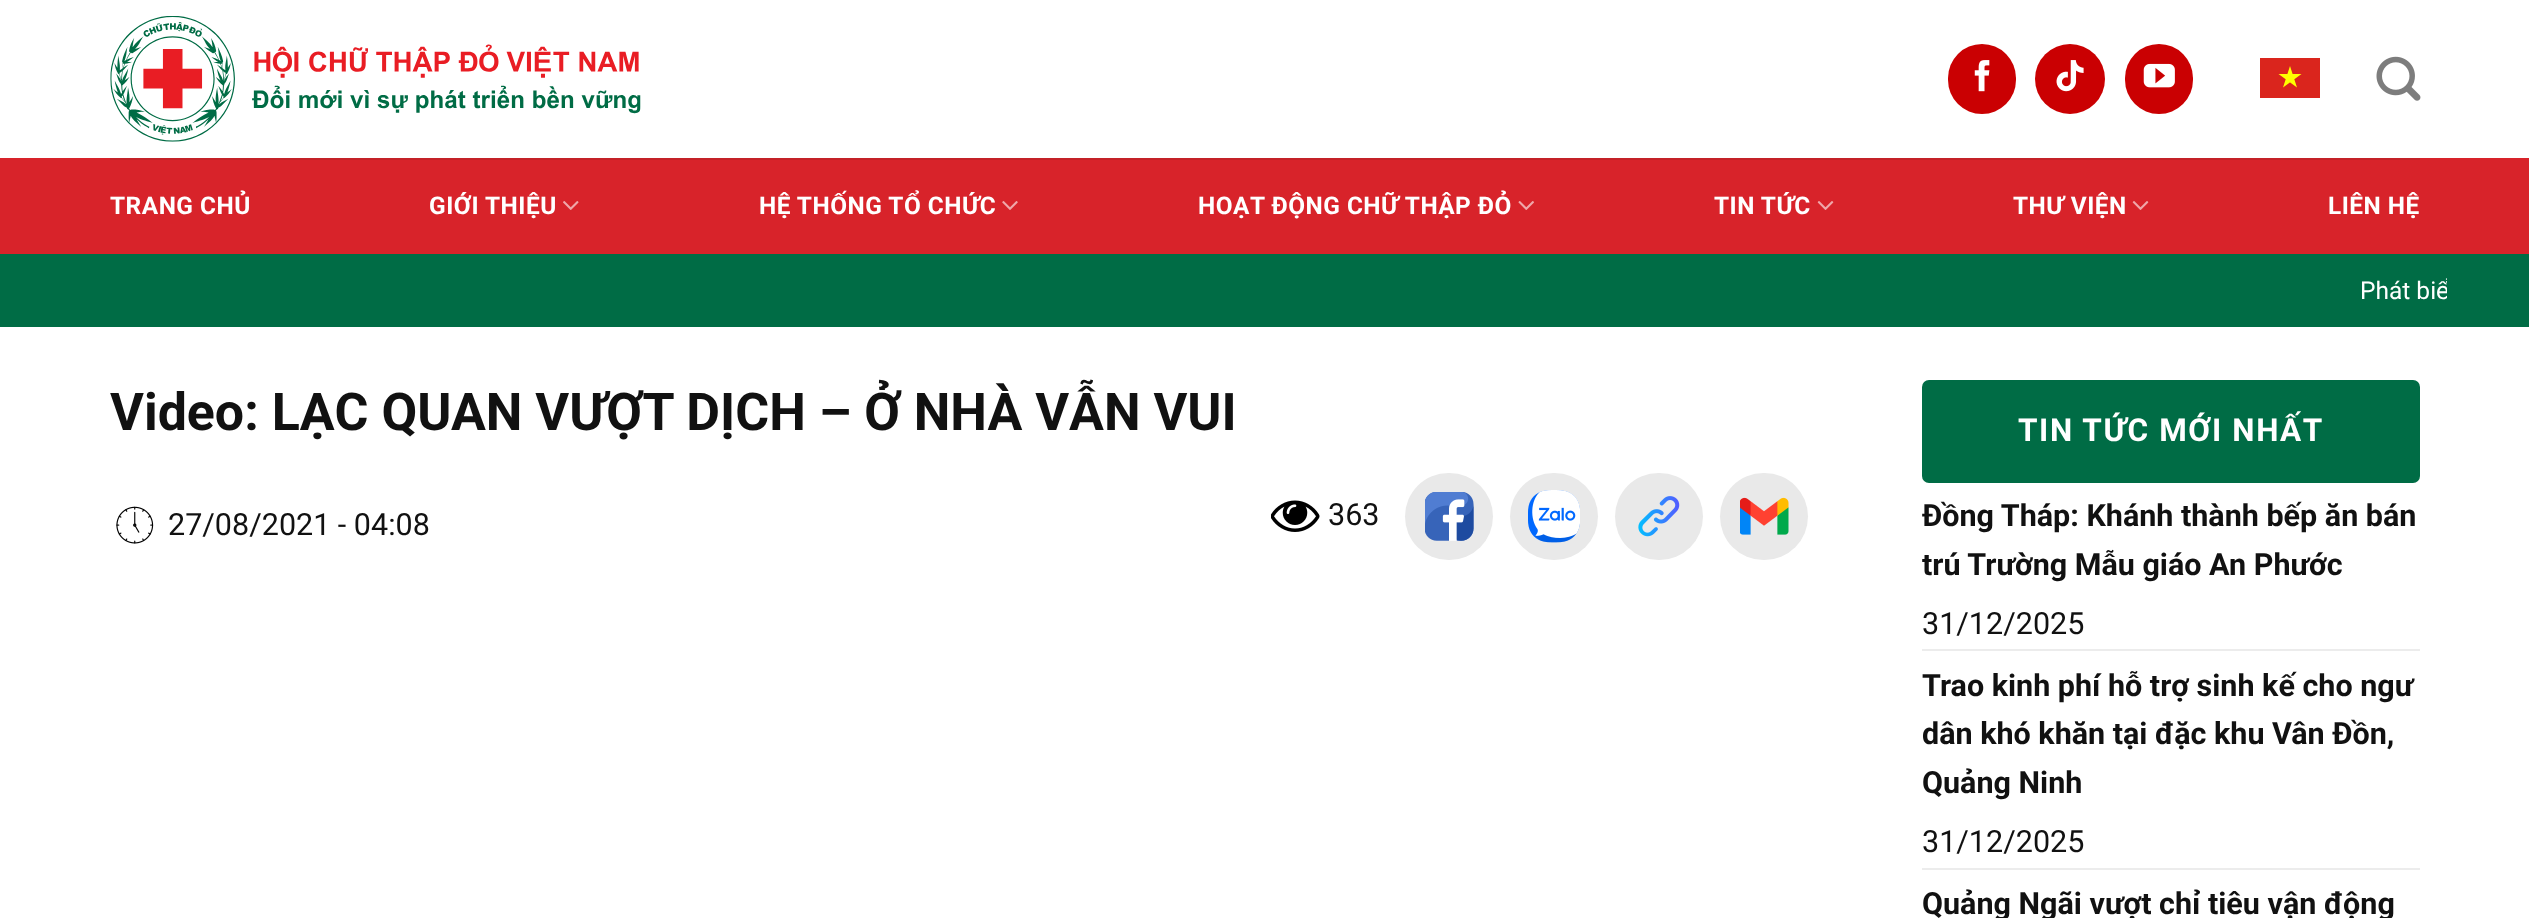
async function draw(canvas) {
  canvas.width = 2529;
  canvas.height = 918;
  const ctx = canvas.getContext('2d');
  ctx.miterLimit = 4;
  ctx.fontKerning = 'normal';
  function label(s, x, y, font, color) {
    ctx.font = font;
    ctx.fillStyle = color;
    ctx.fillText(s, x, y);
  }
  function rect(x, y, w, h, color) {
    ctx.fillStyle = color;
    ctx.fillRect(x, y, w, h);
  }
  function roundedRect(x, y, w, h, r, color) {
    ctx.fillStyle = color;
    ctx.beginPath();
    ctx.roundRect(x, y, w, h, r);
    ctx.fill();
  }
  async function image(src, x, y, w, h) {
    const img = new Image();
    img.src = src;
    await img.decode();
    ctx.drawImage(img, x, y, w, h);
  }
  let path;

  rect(0, 0, 2529, 918, '#fff');
  await image('assets/img1.png', 110, 16, 531, 126);
  roundedRect(1948, 44, 68, 70, 34, '#ca0002');
  await image('assets/img2.png', 1974, 60, 16, 32);
  ctx.beginPath();
  ctx.arc(2070, 79, 35, 0, 2 * Math.PI);
  ctx.fill();
  await image('assets/img3.png', 2056, 60, 28, 32);
  roundedRect(2125, 44, 68, 70, 34, '#ca0002');
  await image('assets/img4.png', 2143, 63, 32, 25);
  rect(2260, 58, 60, 40, '#da251d');
  ctx.fillStyle = '#ff0';
  path = new Path2D('M2290 66L2283 87.5L2301.5 74H2278.5L2297 87.5Z');
  ctx.fill(path);
  await image('assets/img5.png', 2376, 56, 45, 45);
  rect(0, 158, 2529, 96, '#d8232a');
  rect(110, 158, 2310, 2, '#c42128');
  ctx.letterSpacing = '0.5px';
  label('TRANG CHỦ', 110, 214, 'bold 24.4px Roboto', '#fff');
  label('GIỚI THIỆU', 429, 214, 'bold 24.4px Roboto', '#fff');
  await image('assets/img6.png', 563, 201, 16, 9);
  label('HỆ THỐNG TỔ CHỨC', 759, 214, 'bold 24.4px Roboto', '#fff');
  await image('assets/img7.png', 1002, 201, 16, 9);
  label('HOẠT ĐỘNG CHỮ THẬP ĐỎ', 1198, 214, 'bold 24.4px Roboto', '#fff');
  await image('assets/img8.png', 1518, 201, 16, 9);
  label('TIN TỨC', 1714, 214, 'bold 24.4px Roboto', '#fff');
  await image('assets/img9.png', 1817, 201, 17, 9);
  label('THƯ VIỆN', 2013, 214, 'bold 24.4px Roboto', '#fff');
  await image('assets/img9.png', 2132, 201, 17, 9);
  label('LIÊN HỆ', 2328, 214, 'bold 24.4px Roboto', '#fff');
  rect(0, 254, 2529, 73, '#006c45');
  ctx.save();
  ctx.beginPath();
  ctx.rect(84, 266, 2363, 49);
  ctx.clip();
  ctx.letterSpacing = '0px';
  label('Phát biể', 2360, 299, '24.5px Roboto', '#fff');
  ctx.restore();
  ctx.letterSpacing = '0px';
  label('Video: LẠC QUAN VƯỢT DỊCH – Ở NHÀ VẪN VUI', 110, 430, 'bold 51.9px Roboto', '#111');
  await image('assets/img10.png', 116, 506, 38, 38);
  label('27/08/2021 - 04:08', 168, 535, '30.5px Roboto', '#111');
  await image('assets/img11.png', 1271, 500, 49, 32);
  label('363', 1328, 525, '30.5px Roboto', '#111');
  roundedRect(1405, 473, 88, 87, 43.5, '#e9e9e9');
  await image('assets/img12.png', 1425, 492, 49, 49);
  roundedRect(1510, 473, 88, 87, 43.5, '#e9e9e9');
  await image('assets/img13.png', 1528, 490, 52, 53);
  roundedRect(1615, 473, 88, 87, 43.5, '#e9e9e9');
  await image('assets/img14.png', 1638, 496, 42, 41);
  roundedRect(1720, 473, 88, 87, 43.5, '#e9e9e9');
  await image('assets/img15.png', 1740, 497, 49, 38);
  roundedRect(1922, 380, 498, 103, 7, '#006c45');
  ctx.letterSpacing = '1.6px';
  label('TIN TỨC MỚI NHẤT', 2018, 441, 'bold 31.5px Roboto', '#fff');
  ctx.letterSpacing = '0px';
  label('Đồng Tháp: Khánh thành bếp ăn bán', 1922, 526, 'bold 30.5px Roboto', '#111');
  label('trú Trường Mẫu giáo An Phước', 1922, 575, 'bold 30.5px Roboto', '#111');
  label('31/12/2025', 1922, 634, '30.5px Roboto', '#111');
  rect(1922, 649, 498, 2, '#ececec');
  label('Trao kinh phí hỗ trợ sinh kế cho ngư', 1922, 696, 'bold 30.5px Roboto', '#111');
  label('dân khó khăn tại đặc khu Vân Đồn,', 1922, 744, 'bold 30.5px Roboto', '#111');
  label('Quảng Ninh', 1922, 793, 'bold 30.5px Roboto', '#111');
  label('31/12/2025', 1922, 852, '30.5px Roboto', '#111');
  rect(1922, 868, 498, 2, '#ececec');
  label('Quảng Ngãi vượt chỉ tiêu vận động', 1922, 914, 'bold 30.5px Roboto', '#111');
}

draw(document.querySelector('canvas'));
